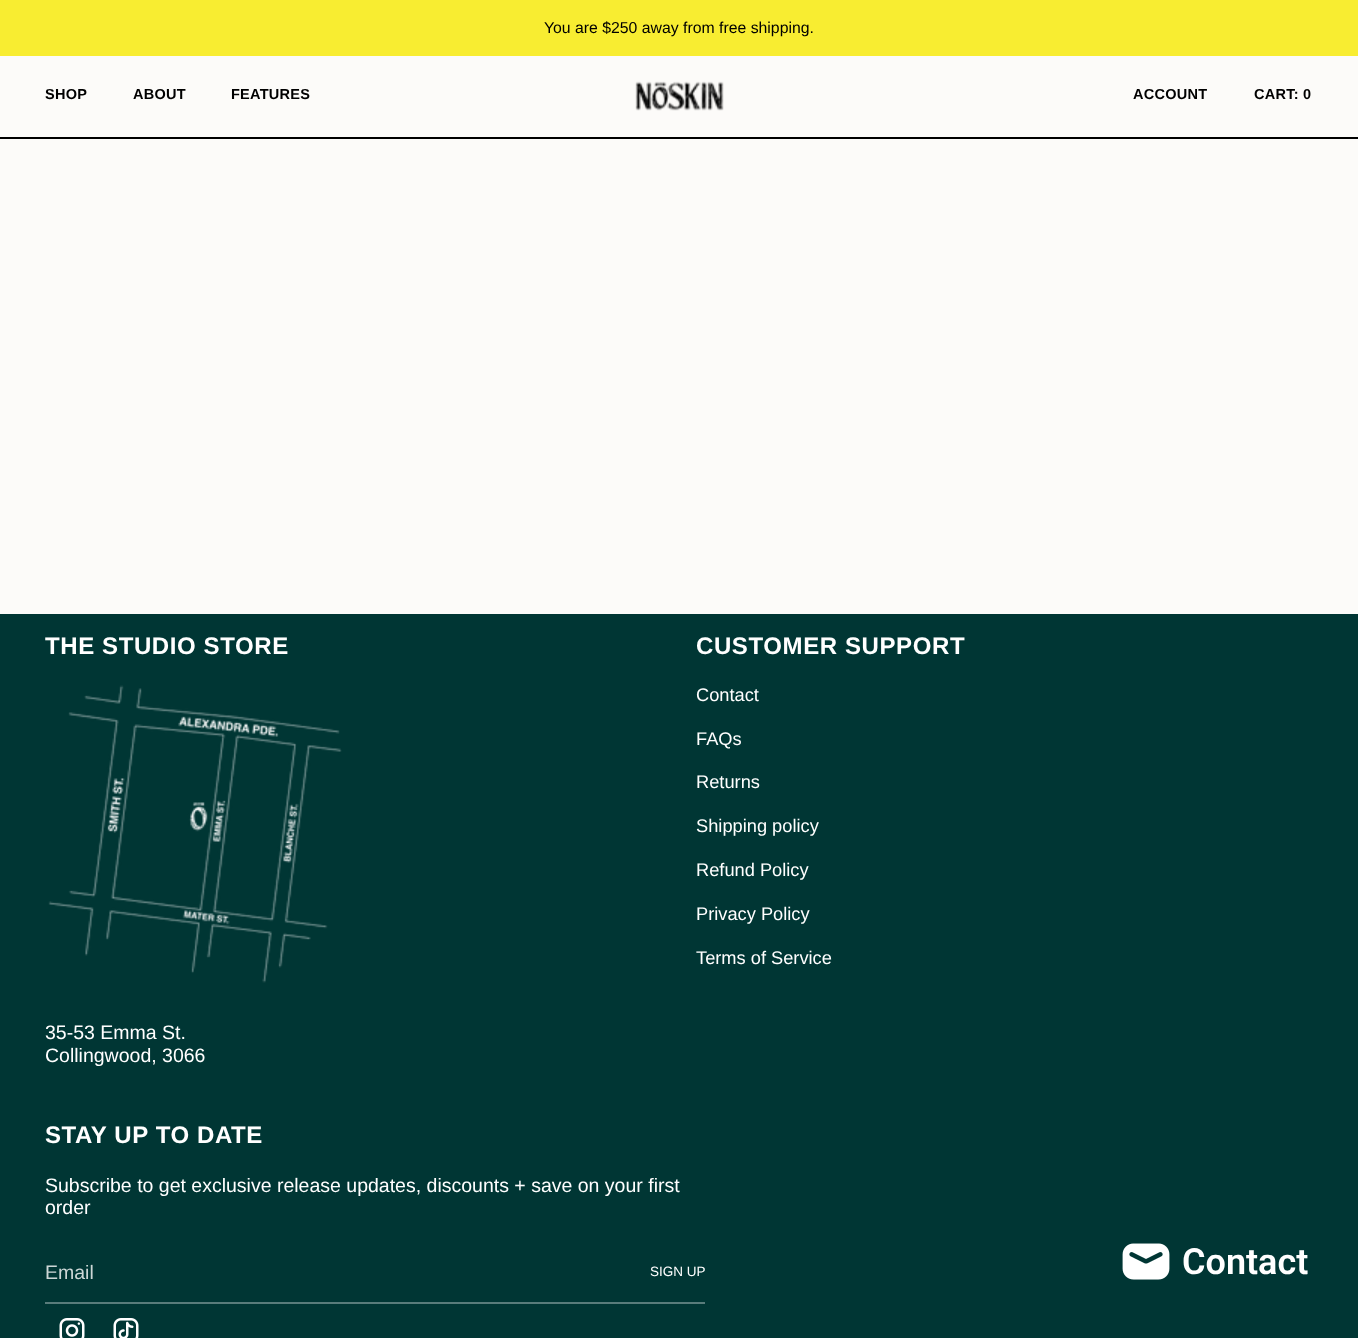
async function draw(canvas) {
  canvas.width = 1358;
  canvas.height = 1338;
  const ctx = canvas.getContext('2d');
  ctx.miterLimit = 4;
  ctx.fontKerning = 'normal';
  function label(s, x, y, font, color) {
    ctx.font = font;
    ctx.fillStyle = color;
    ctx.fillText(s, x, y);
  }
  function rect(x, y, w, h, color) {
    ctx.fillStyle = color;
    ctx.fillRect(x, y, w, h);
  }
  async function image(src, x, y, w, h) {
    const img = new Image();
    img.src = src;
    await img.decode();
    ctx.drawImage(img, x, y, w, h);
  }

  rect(0, 0, 1358, 1338, '#fcfbf9');
  rect(0, 0, 1358, 56, '#f8ed31');
  label('You are $250 away from free shipping.', 544, 33, '15.8px Liberation Sans', '#000');
  ctx.letterSpacing = '0.25px';
  label('SHOP', 45, 99, 'bold 14.5px Liberation Sans', '#000');
  label('ABOUT', 133, 99, 'bold 14.5px Liberation Sans', '#000');
  label('FEATURES', 231, 99, 'bold 14.5px Liberation Sans', '#000');
  await image('assets/img1.png', 635, 81, 89, 30);
  label('ACCOUNT', 1133, 99, 'bold 14.5px Liberation Sans', '#000');
  label('CART: 0', 1254, 99, 'bold 14.5px Liberation Sans', '#000');
  rect(0, 137, 1358, 2, '#000');
  rect(0, 614, 1358, 724, '#003634');
  ctx.letterSpacing = '0.6px';
  label('THE STUDIO STORE', 45, 654, 'bold 24px Liberation Sans', '#fff');
  await image('assets/img2.png', 48, 685, 294, 298);
  ctx.letterSpacing = '0px';
  label('35-53 Emma St.', 45, 1039, '19.5px Liberation Sans', '#fff');
  label('Collingwood, 3066', 45, 1062, '19.5px Liberation Sans', '#fff');
  ctx.letterSpacing = '0.6px';
  label('CUSTOMER SUPPORT', 696, 654, 'bold 24px Liberation Sans', '#fff');
  ctx.letterSpacing = '0px';
  label('Contact', 696, 701, '18.25px Liberation Sans', '#fff');
  label('FAQs', 696, 745, '18.25px Liberation Sans', '#fff');
  label('Returns', 696, 788, '18.25px Liberation Sans', '#fff');
  label('Shipping policy', 696, 832, '18.25px Liberation Sans', '#fff');
  label('Refund Policy', 696, 876, '18.25px Liberation Sans', '#fff');
  label('Privacy Policy', 696, 920, '18.25px Liberation Sans', '#fff');
  label('Terms of Service', 696, 964, '18.25px Liberation Sans', '#fff');
  ctx.letterSpacing = '0.6px';
  label('STAY UP TO DATE', 45, 1143, 'bold 24px Liberation Sans', '#fff');
  ctx.letterSpacing = '0px';
  label('Subscribe to get exclusive release updates, discounts + save on your first', 45, 1192, '19.5px Liberation Sans', '#fff');
  label('order', 45, 1214, '19.5px Liberation Sans', '#fff');
  rect(45, 1302, 660, 2, '#597c7b');
  label('Email', 45, 1279, '19.5px Liberation Sans', '#ccd7d6');
  label('SIGN UP', 650, 1276, '13.5px Liberation Sans', '#fff');
  await image('assets/img3.png', 59, 1318, 26, 20);
  await image('assets/img4.png', 113, 1318, 26, 20);
  await image('assets/img5.png', 1122, 1243, 48, 37);
  label('Contact', 1182, 1274, '600 36px Roboto', '#fff');
}

draw(document.querySelector('canvas'));
